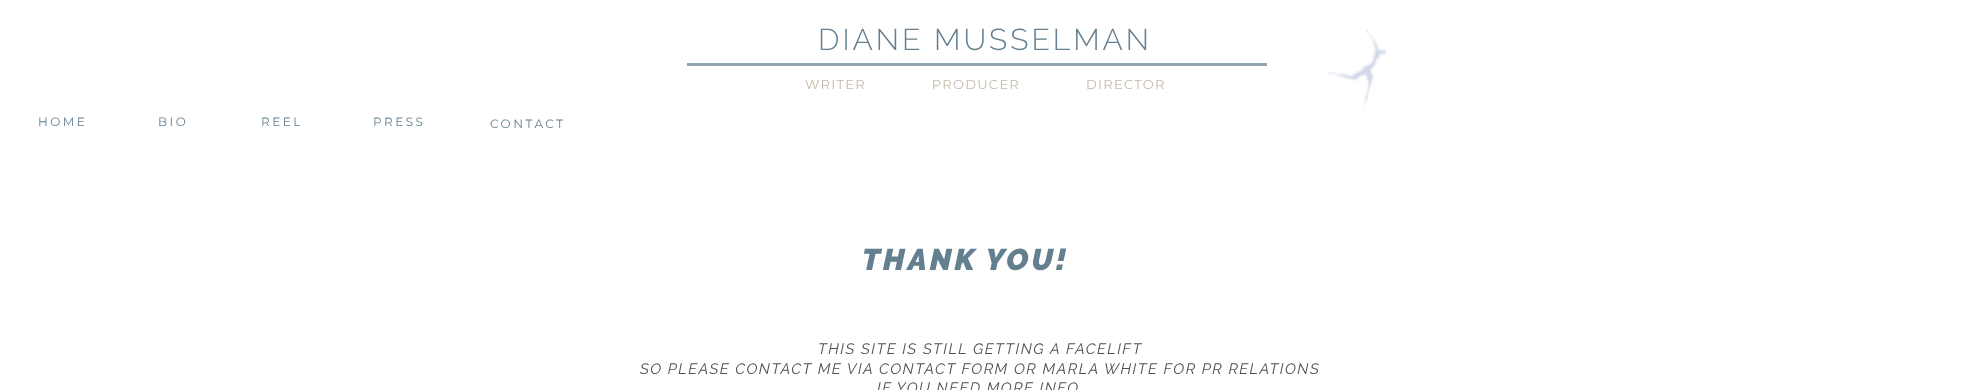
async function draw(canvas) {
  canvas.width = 1970;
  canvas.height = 390;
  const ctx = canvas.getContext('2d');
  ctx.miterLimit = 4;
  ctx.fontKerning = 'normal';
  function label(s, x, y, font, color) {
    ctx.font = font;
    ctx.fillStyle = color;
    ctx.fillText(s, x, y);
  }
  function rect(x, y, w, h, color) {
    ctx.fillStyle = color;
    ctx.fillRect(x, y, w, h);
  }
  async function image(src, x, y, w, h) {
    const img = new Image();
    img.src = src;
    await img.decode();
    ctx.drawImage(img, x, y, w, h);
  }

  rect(0, 0, 1970, 390, '#fff');
  ctx.letterSpacing = '3px';
  label('DIANE MUSSELMAN', 818, 50, '100 30px Raleway', '#637f90');
  await image('assets/img1.png', 1327, 29, 60, 87);
  rect(687, 63, 580, 3, '#92a5b1');
  ctx.letterSpacing = '1.3px';
  label('WRITER              PRODUCER              DIRECTOR', 805, 89, '100 13px Montserrat', '#c5b8a8');
  ctx.letterSpacing = '2.5px';
  label('HOME', 38, 126, '100 12px Montserrat', '#637f90');
  label('BIO', 158, 126, '100 12px Montserrat', '#637f90');
  label('REEL', 261, 126, '100 12px Montserrat', '#637f90');
  label('PRESS', 373, 126, '100 12px Montserrat', '#637f90');
  label('CONTACT', 490, 128, '100 12px Montserrat', '#637f90');
  ctx.letterSpacing = '3px';
  label('THANK YOU!', 862, 270, 'italic 900 30px Raleway', '#637f90');
  ctx.letterSpacing = '1.5px';
  label('THIS SITE IS STILL GETTING A FACELIFT', 818, 354, 'italic 15px Raleway', '#4e4e4e');
  label('SO PLEASE CONTACT ME VIA CONTACT FORM OR MARLA WHITE FOR PR RELATIONS', 640, 374, 'italic 15px Raleway', '#4e4e4e');
  label('IF YOU NEED MORE INFO', 877, 393, 'italic 15px Raleway', '#4e4e4e');
}

draw(document.querySelector('canvas'));
